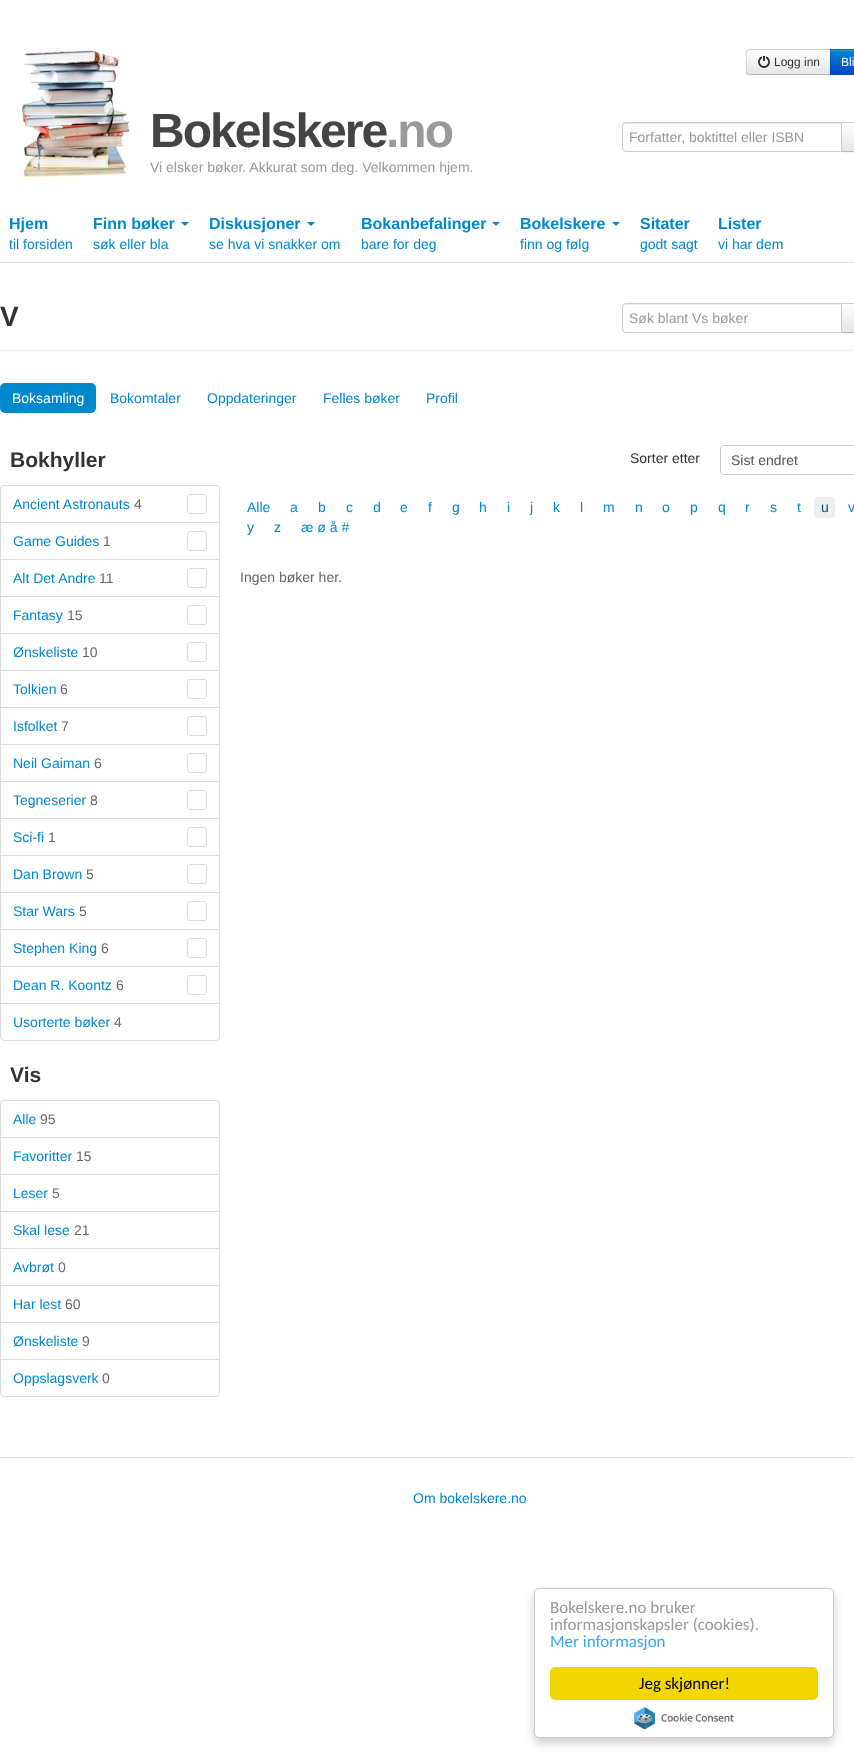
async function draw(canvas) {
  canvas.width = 854;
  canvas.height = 1758;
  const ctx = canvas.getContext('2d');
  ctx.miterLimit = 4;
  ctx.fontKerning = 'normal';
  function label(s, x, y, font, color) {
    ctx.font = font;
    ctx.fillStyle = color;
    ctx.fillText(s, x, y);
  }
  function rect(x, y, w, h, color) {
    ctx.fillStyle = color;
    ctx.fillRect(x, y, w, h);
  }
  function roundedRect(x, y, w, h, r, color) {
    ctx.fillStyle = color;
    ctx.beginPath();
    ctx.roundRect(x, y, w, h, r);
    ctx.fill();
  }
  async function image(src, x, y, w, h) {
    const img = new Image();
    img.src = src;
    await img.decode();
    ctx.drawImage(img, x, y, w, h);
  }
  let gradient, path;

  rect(0, 0, 854, 1758, '#fff');
  ctx.fillStyle = '#0000000d';
  ctx.filter = 'blur(1px)';
  ctx.beginPath();
  ctx.roundRect(746, 50, 85, 26, 4);
  ctx.fill();
  ctx.filter = 'none';
  ctx.fillStyle = '#f5f5f5';
  ctx.beginPath();
  ctx.roundRect(746, 49, 85, 26, [4, 0, 0, 4]);
  ctx.fill();
  ctx.save();
  ctx.beginPath();
  ctx.roundRect(746, 49, 85, 26, [4, 0, 0, 4]);
  ctx.clip();
  gradient = ctx.createLinearGradient(789, 50, 789, 74);
  gradient.addColorStop(0, '#fff');
  gradient.addColorStop(1, '#e6e6e6');
  ctx.fillStyle = gradient;
  ctx.fillRect(746, 50, 84, 24);
  ctx.restore();
  ctx.fillStyle = '#00000026';
  path = new Path2D('M750 49L747 50L748 51L749 50H830L831 49Z');
  ctx.fill(path);
  ctx.fillStyle = '#00000040';
  path = new Path2D('M831 75L830 74H749L748 73L747 74L750 75Z');
  ctx.fill(path);
  ctx.fillStyle = '#00000026';
  path = new Path2D('M746 53V71C746 72 746.5 73 747 74L748 73C746 71.5 747 64 747 62C747 60 746 52.5 748 51L747 50C746.5 51 746 52 746 53Z');
  ctx.fill(path);
  await image('assets/img1.png', 758, 56, 12, 13);
  label('Logg inn', 774, 66, '12px Liberation Sans', '#333');
  ctx.fillStyle = '#0000000d';
  ctx.filter = 'blur(1px)';
  ctx.beginPath();
  ctx.roundRect(830, 50, 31, 26, 4);
  ctx.fill();
  ctx.filter = 'none';
  rect(830, 49, 1, 26, '#006dcc');
  gradient = ctx.createLinearGradient(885, 50, 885, 74);
  gradient.addColorStop(0, '#08c');
  gradient.addColorStop(1, '#04c');
  ctx.fillStyle = gradient;
  ctx.fillRect(830, 50, 24, 24);
  ctx.fillStyle = '#339fd6';
  path = new Path2D('M831 51H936C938 51 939 52 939 54V53C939 51 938 50 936 50H831Z');
  ctx.fill(path);
  ctx.fillStyle = '#0062b8';
  path = new Path2D('M830 49L831 50H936L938 51L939 50L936 49Z');
  ctx.fill(path);
  ctx.fillStyle = '#005299';
  path = new Path2D('M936 75L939 74L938 73L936 74H831L830 75Z');
  ctx.fill(path);
  ctx.fillStyle = '#0000001a';
  path = new Path2D('M830 49V75L831 74V50Z');
  ctx.fill(path);
  label('Bli', 841, 66, '12px Liberation Sans', '#fff');
  await image('assets/img2.png', 21, 50, 109, 127);
  ctx.letterSpacing = '-2px';
  label('Bokelskere', 150, 147, 'bold 48px Liberation Sans', '#444');
  label('.no', 386, 147, 'bold 48px Liberation Sans', '#999');
  ctx.letterSpacing = '0px';
  label('Vi elsker bøker. Akkurat som deg. Velkommen hjem.', 150, 172, '14px Liberation Sans', '#999');
  ctx.fillStyle = '#0000000d';
  ctx.filter = 'blur(1px)';
  ctx.beginPath();
  ctx.roundRect(841, 123, 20, 30, 4);
  ctx.fill();
  ctx.filter = 'none';
  ctx.fillStyle = '#d0d0d0';
  path = new Path2D('M841 122L842 123H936L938 124L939 123L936 122Z');
  ctx.fill(path);
  ctx.fillStyle = '#b8b8b8';
  path = new Path2D('M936 152L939 151L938 150L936 151H842L841 152Z');
  ctx.fill(path);
  ctx.fillStyle = '#fff';
  ctx.beginPath();
  ctx.roundRect(622, 122, 220, 30, [4, 0, 0, 4]);
  ctx.fill();
  ctx.fillStyle = '#ececec';
  path = new Path2D('M626 124H841V123H626C624 123 623 124 623 126V127C623 125 624 124 626 124Z');
  ctx.fill(path);
  ctx.beginPath();
  ctx.roundRect(622.5, 122.5, 219, 29, [3.5, 0, 0, 3.5]);
  ctx.strokeStyle = '#ccc';
  ctx.stroke();
  label('Forfatter, boktittel eller ISBN', 629, 142, '14px Liberation Sans', '#999');
  gradient = ctx.createLinearGradient(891, 123, 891, 151);
  gradient.addColorStop(0, '#fff');
  gradient.addColorStop(1, '#e6e6e6');
  ctx.fillStyle = gradient;
  ctx.fillRect(842, 123, 12, 28);
  rect(0, 262, 854, 1, '#ddd');
  label('Hjem', 9, 229, 'bold 16px Liberation Sans', '#08c');
  label('til forsiden', 9, 249, '14px Liberation Sans', '#08c');
  label('Finn bøker', 93, 229, 'bold 16px Liberation Sans', '#08c');
  path = new Path2D('M181 222H189L185 226Z');
  ctx.fill(path);
  label('søk eller bla', 93, 249, '14px Liberation Sans', '#08c');
  label('Diskusjoner', 209, 229, 'bold 16px Liberation Sans', '#08c');
  path = new Path2D('M307 222H315L311 226Z');
  ctx.fill(path);
  label('se hva vi snakker om', 209, 249, '14px Liberation Sans', '#08c');
  label('Bokanbefalinger', 361, 229, 'bold 16px Liberation Sans', '#08c');
  path = new Path2D('M492 222H500L496 226Z');
  ctx.fill(path);
  label('bare for deg', 361, 249, '14px Liberation Sans', '#08c');
  label('Bokelskere', 520, 229, 'bold 16px Liberation Sans', '#08c');
  path = new Path2D('M612 222H620L616 226Z');
  ctx.fill(path);
  label('finn og følg', 520, 249, '14px Liberation Sans', '#08c');
  label('Sitater', 640, 229, 'bold 16px Liberation Sans', '#08c');
  label('godt sagt', 640, 249, '14px Liberation Sans', '#08c');
  label('Lister', 718, 229, 'bold 16px Liberation Sans', '#08c');
  label('vi har dem', 718, 249, '14px Liberation Sans', '#08c');
  rect(0, 350, 854, 1, '#eee');
  label('V', 0, 326, 'bold 28px Liberation Sans', '#333');
  ctx.fillStyle = '#0000000d';
  ctx.filter = 'blur(1px)';
  ctx.beginPath();
  ctx.roundRect(841, 304, 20, 30, 4);
  ctx.fill();
  ctx.filter = 'none';
  ctx.fillStyle = '#d0d0d0';
  path = new Path2D('M841 303L842 304H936L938 305L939 304L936 303Z');
  ctx.fill(path);
  ctx.fillStyle = '#b8b8b8';
  path = new Path2D('M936 333L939 332L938 331L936 332H842L841 333Z');
  ctx.fill(path);
  ctx.fillStyle = '#fff';
  ctx.beginPath();
  ctx.roundRect(622, 303, 220, 30, [4, 0, 0, 4]);
  ctx.fill();
  ctx.fillStyle = '#ececec';
  path = new Path2D('M626 305H841V304H626C624 304 623 305 623 307V308C623 306 624 305 626 305Z');
  ctx.fill(path);
  ctx.beginPath();
  ctx.roundRect(622.5, 303.5, 219, 29, [3.5, 0, 0, 3.5]);
  ctx.stroke();
  label('Søk blant Vs bøker', 629, 323, '14px Liberation Sans', '#999');
  gradient = ctx.createLinearGradient(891, 304, 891, 332);
  gradient.addColorStop(0, '#fff');
  gradient.addColorStop(1, '#e6e6e6');
  ctx.fillStyle = gradient;
  ctx.fillRect(842, 304, 12, 28);
  roundedRect(0, 383, 96, 30, 5, '#08c');
  label('Boksamling', 12, 403, '14px Liberation Sans', '#fff');
  label('Bokomtaler', 110, 403, '14px Liberation Sans', '#08c');
  label('Oppdateringer', 207, 403, '14px Liberation Sans', '#08c');
  label('Felles bøker', 323, 403, '14px Liberation Sans', '#08c');
  label('Profil', 426, 403, '14px Liberation Sans', '#08c');
  label('Bokhyller', 10, 467, 'bold 21px Liberation Sans', '#333');
  ctx.beginPath();
  ctx.roundRect(0.5, 485.5, 219, 37, [3.5, 3.5, 0, 0]);
  ctx.strokeStyle = '#ddd';
  ctx.stroke();
  label('Ancient Astronauts', 13, 509, '14px Liberation Sans', '#08c');
  label('4', 134, 509, '14px Liberation Sans', '#666');
  ctx.beginPath();
  ctx.roundRect(187.5, 494.5, 19, 19, 2.5);
  ctx.stroke();
  ctx.strokeRect(0.5, 522.5, 219, 37);
  label('Game Guides', 13, 546, '14px Liberation Sans', '#08c');
  label('1', 103, 546, '14px Liberation Sans', '#666');
  ctx.beginPath();
  ctx.roundRect(187.5, 531.5, 19, 19, 2.5);
  ctx.stroke();
  ctx.strokeRect(0.5, 559.5, 219, 37);
  label('Alt Det Andre', 13, 583, '14px Liberation Sans', '#08c');
  label('11', 99, 583, '14px Liberation Sans', '#666');
  ctx.beginPath();
  ctx.roundRect(187.5, 568.5, 19, 19, 2.5);
  ctx.stroke();
  ctx.strokeRect(0.5, 596.5, 219, 37);
  label('Fantasy', 13, 620, '14px Liberation Sans', '#08c');
  label('15', 67, 620, '14px Liberation Sans', '#666');
  ctx.beginPath();
  ctx.roundRect(187.5, 605.5, 19, 19, 2.5);
  ctx.stroke();
  ctx.strokeRect(0.5, 633.5, 219, 37);
  label('Ønskeliste', 13, 657, '14px Liberation Sans', '#08c');
  label('10', 82, 657, '14px Liberation Sans', '#666');
  ctx.beginPath();
  ctx.roundRect(187.5, 642.5, 19, 19, 2.5);
  ctx.stroke();
  ctx.strokeRect(0.5, 670.5, 219, 37);
  label('Tolkien', 13, 694, '14px Liberation Sans', '#08c');
  label('6', 60, 694, '14px Liberation Sans', '#666');
  ctx.beginPath();
  ctx.roundRect(187.5, 679.5, 19, 19, 2.5);
  ctx.stroke();
  ctx.strokeRect(0.5, 707.5, 219, 37);
  label('Isfolket', 13, 731, '14px Liberation Sans', '#08c');
  label('7', 61, 731, '14px Liberation Sans', '#666');
  ctx.beginPath();
  ctx.roundRect(187.5, 716.5, 19, 19, 2.5);
  ctx.stroke();
  ctx.strokeRect(0.5, 744.5, 219, 37);
  label('Neil Gaiman', 13, 768, '14px Liberation Sans', '#08c');
  label('6', 94, 768, '14px Liberation Sans', '#666');
  ctx.beginPath();
  ctx.roundRect(187.5, 753.5, 19, 19, 2.5);
  ctx.stroke();
  ctx.strokeRect(0.5, 781.5, 219, 37);
  label('Tegneserier', 13, 805, '14px Liberation Sans', '#08c');
  label('8', 90, 805, '14px Liberation Sans', '#666');
  ctx.beginPath();
  ctx.roundRect(187.5, 790.5, 19, 19, 2.5);
  ctx.stroke();
  ctx.strokeRect(0.5, 818.5, 219, 37);
  label('Sci-fi', 13, 842, '14px Liberation Sans', '#08c');
  label('1', 48, 842, '14px Liberation Sans', '#666');
  ctx.beginPath();
  ctx.roundRect(187.5, 827.5, 19, 19, 2.5);
  ctx.stroke();
  ctx.strokeRect(0.5, 855.5, 219, 37);
  label('Dan Brown', 13, 879, '14px Liberation Sans', '#08c');
  label('5', 86, 879, '14px Liberation Sans', '#666');
  ctx.beginPath();
  ctx.roundRect(187.5, 864.5, 19, 19, 2.5);
  ctx.stroke();
  ctx.strokeRect(0.5, 892.5, 219, 37);
  label('Star Wars', 13, 916, '14px Liberation Sans', '#08c');
  label('5', 79, 916, '14px Liberation Sans', '#666');
  ctx.beginPath();
  ctx.roundRect(187.5, 901.5, 19, 19, 2.5);
  ctx.stroke();
  ctx.strokeRect(0.5, 929.5, 219, 37);
  label('Stephen King', 13, 953, '14px Liberation Sans', '#08c');
  label('6', 101, 953, '14px Liberation Sans', '#666');
  ctx.beginPath();
  ctx.roundRect(187.5, 938.5, 19, 19, 2.5);
  ctx.stroke();
  ctx.strokeRect(0.5, 966.5, 219, 37);
  label('Dean R. Koontz', 13, 990, '14px Liberation Sans', '#08c');
  label('6', 116, 990, '14px Liberation Sans', '#666');
  ctx.beginPath();
  ctx.roundRect(187.5, 975.5, 19, 19, 2.5);
  ctx.stroke();
  ctx.beginPath();
  ctx.roundRect(0.5, 1003.5, 219, 37, [0, 0, 3.5, 3.5]);
  ctx.stroke();
  label('Usorterte bøker', 13, 1027, '14px Liberation Sans', '#08c');
  label('4', 114, 1027, '14px Liberation Sans', '#666');
  label('Vis', 10, 1082, 'bold 21px Liberation Sans', '#333');
  ctx.beginPath();
  ctx.roundRect(0.5, 1100.5, 219, 37, [3.5, 3.5, 0, 0]);
  ctx.stroke();
  label('Alle', 13, 1124, '14px Liberation Sans', '#08c');
  label('95', 40, 1124, '14px Liberation Sans', '#666');
  ctx.strokeRect(0.5, 1137.5, 219, 37);
  label('Favoritter', 13, 1161, '14px Liberation Sans', '#08c');
  label('15', 76, 1161, '14px Liberation Sans', '#666');
  ctx.strokeRect(0.5, 1174.5, 219, 37);
  label('Leser', 13, 1198, '14px Liberation Sans', '#08c');
  label('5', 52, 1198, '14px Liberation Sans', '#666');
  ctx.strokeRect(0.5, 1211.5, 219, 37);
  label('Skal lese', 13, 1235, '14px Liberation Sans', '#08c');
  label('21', 74, 1235, '14px Liberation Sans', '#666');
  ctx.strokeRect(0.5, 1248.5, 219, 37);
  label('Avbrøt', 13, 1272, '14px Liberation Sans', '#08c');
  label('0', 58, 1272, '14px Liberation Sans', '#666');
  ctx.strokeRect(0.5, 1285.5, 219, 37);
  label('Har lest', 13, 1309, '14px Liberation Sans', '#08c');
  label('60', 65, 1309, '14px Liberation Sans', '#666');
  ctx.strokeRect(0.5, 1322.5, 219, 37);
  label('Ønskeliste', 13, 1346, '14px Liberation Sans', '#08c');
  label('9', 82, 1346, '14px Liberation Sans', '#666');
  ctx.beginPath();
  ctx.roundRect(0.5, 1359.5, 219, 37, [0, 0, 3.5, 3.5]);
  ctx.stroke();
  label('Oppslagsverk', 13, 1383, '14px Liberation Sans', '#08c');
  label('0', 102, 1383, '14px Liberation Sans', '#666');
  label('Sorter etter', 630, 463, '14px Liberation Sans', '#333');
  ctx.beginPath();
  ctx.roundRect(720.5, 445.5, 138, 29, 3.5);
  ctx.strokeStyle = '#ccc';
  ctx.stroke();
  label('Sist endret', 731, 465, '14px Liberation Sans', '#555');
  label('Alle', 247, 512, '14px Liberation Sans', '#08c');
  label('a', 290, 512, '14px Liberation Sans', '#08c');
  label('b', 318, 512, '14px Liberation Sans', '#08c');
  label('c', 346, 512, '14px Liberation Sans', '#08c');
  label('d', 373, 512, '14px Liberation Sans', '#08c');
  label('e', 400, 512, '14px Liberation Sans', '#08c');
  label('f', 428, 512, '14px Liberation Sans', '#08c');
  label('g', 452, 512, '14px Liberation Sans', '#08c');
  label('h', 479, 512, '14px Liberation Sans', '#08c');
  label('i', 507, 512, '14px Liberation Sans', '#08c');
  label('j', 530, 512, '14px Liberation Sans', '#08c');
  label('k', 553, 512, '14px Liberation Sans', '#08c');
  label('l', 580, 512, '14px Liberation Sans', '#08c');
  label('m', 603, 512, '14px Liberation Sans', '#08c');
  label('n', 635, 512, '14px Liberation Sans', '#08c');
  label('o', 662, 512, '14px Liberation Sans', '#08c');
  label('p', 690, 512, '14px Liberation Sans', '#08c');
  label('q', 718, 512, '14px Liberation Sans', '#08c');
  label('r', 745, 512, '14px Liberation Sans', '#08c');
  label('s', 770, 512, '14px Liberation Sans', '#08c');
  label('t', 797, 512, '14px Liberation Sans', '#08c');
  roundedRect(814, 497, 21, 21, 4, '#eee');
  label('u', 821, 512, '14px Liberation Sans', '#005580');
  label('v', 848, 512, '14px Liberation Sans', '#08c');
  label('y', 247, 532, '14px Liberation Sans', '#08c');
  label('z', 274, 532, '14px Liberation Sans', '#08c');
  label('æ ø å #', 301, 532, '14px Liberation Sans', '#08c');
  label('Ingen bøker her.', 240, 582, '14px Liberation Sans', '#666');
  rect(0, 1457, 854, 1, '#ddd');
  label('Om bokelskere.no', 413, 1503, '14px Liberation Sans', '#08c');
  ctx.fillStyle = '#00000033';
  ctx.filter = 'blur(5px)';
  ctx.beginPath();
  ctx.roundRect(534, 1593, 300, 150, 5);
  ctx.fill();
  ctx.filter = 'none';
  ctx.fillStyle = '#fff';
  ctx.beginPath();
  ctx.roundRect(534.5, 1588.5, 299, 149, 4.5);
  ctx.fill();
  ctx.stroke();
  label('Bokelskere.no bruker', 550, 1613, '17px Carlito', '#999');
  label('informasjonskapsler (cookies).', 550, 1630, '17px Carlito', '#999');
  label('Mer informasjon', 550, 1647, '17px Carlito', '#31a8f0');
  roundedRect(550, 1667, 268, 33, 5, '#f1d600');
  label('Jeg skjønner!', 639, 1689, '17px Carlito', '#000');
  await image('assets/img3.png', 634, 1707, 100, 22);
}

draw(document.querySelector('canvas'));
